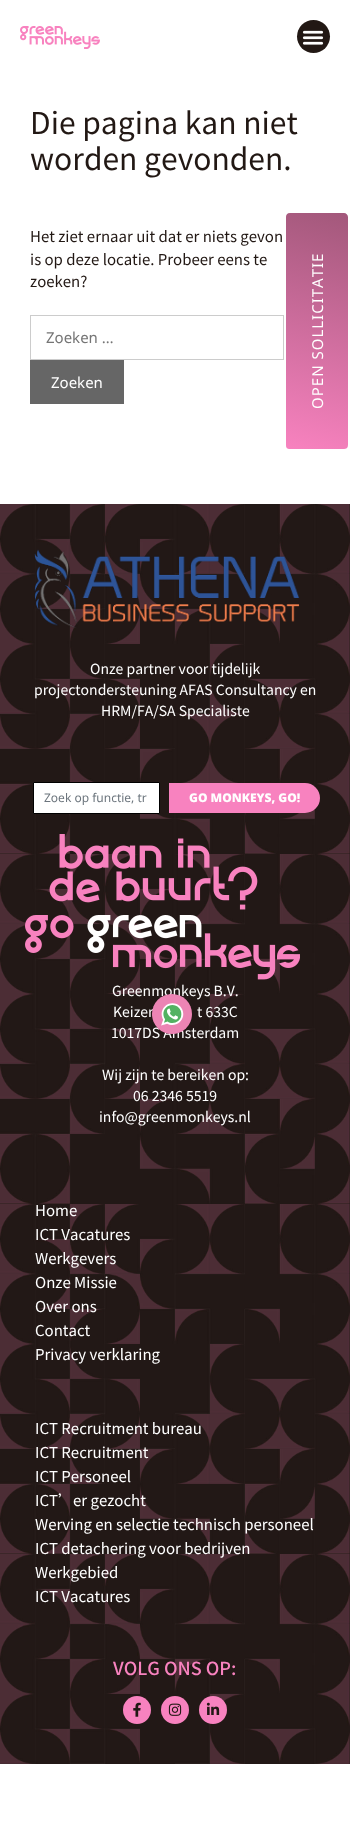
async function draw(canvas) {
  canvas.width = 350;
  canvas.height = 1824;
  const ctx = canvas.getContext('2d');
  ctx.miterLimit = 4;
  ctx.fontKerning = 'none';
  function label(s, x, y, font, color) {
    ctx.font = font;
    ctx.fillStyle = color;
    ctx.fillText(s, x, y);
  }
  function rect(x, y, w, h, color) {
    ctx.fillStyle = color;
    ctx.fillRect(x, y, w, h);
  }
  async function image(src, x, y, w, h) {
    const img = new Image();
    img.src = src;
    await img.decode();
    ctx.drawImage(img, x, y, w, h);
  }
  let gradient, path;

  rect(0, 0, 350, 1824, '#fff');
  await image('assets/img1.png', 20, 26, 80, 23);
  ctx.fillStyle = '#221814';
  ctx.beginPath();
  ctx.arc(313.5, 36.5, 16.5, 0, 2 * Math.PI);
  ctx.fill();
  await image('assets/img2.png', 302, 30, 22, 15);
  label('Die pagina kan niet', 30, 134, '30px Noto Sans HK', '#221814');
  label('worden gevonden.', 30, 170, '30px Noto Sans HK', '#221814');
  label('Het ziet ernaar uit dat er niets gevon', 30, 242, '15px Noto Sans HK', '#221814');
  label('is op deze locatie. Probeer eens te', 30, 265, '15px Noto Sans HK', '#221814');
  label('zoeken?', 30, 287, '15px Noto Sans HK', '#221814');
  ctx.strokeStyle = '#ccc';
  ctx.strokeRect(30.5, 315.5, 253, 44);
  label('Zoeken …', 46, 343, '15px Noto Sans', '#757575');
  rect(30, 360, 94, 44, '#666');
  label('Zoeken', 51, 388, '15px Noto Sans', '#fff');
  await image('assets/img3.png', 0, 504, 350, 1260);
  gradient = ctx.createLinearGradient(282, 448, 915, -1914);
  gradient.addColorStop(0, '#f882bf');
  gradient.addColorStop(0.25, '#221814');
  gradient.addColorStop(0.5, '#f882bf');
  gradient.addColorStop(0.75, '#221814');
  gradient.addColorStop(1, '#f882bf');
  ctx.fillStyle = gradient;
  path = new Path2D('M286 445V217C286 215 287 213 290 213H344C346 213 348 215 348 217V445C348 448 346 449 344 449H290C287 449 286 448 286 445Z');
  ctx.fill(path);
  ctx.letterSpacing = '1px';
  ctx.fillStyle = '#fff';
  ctx.save();
  ctx.translate(323, 409);
  ctx.rotate(-90 * Math.PI / 180);
  ctx.fillText('OPEN SOLLICITATIE', 0, 0);
  ctx.restore();
  await image('assets/img4.png', 34, 549, 266, 79);
  ctx.letterSpacing = '0px';
  label('Onze partner voor tijdelijk', 90, 674, '14px Noto Sans HK', '#fff');
  label('projectondersteuning AFAS Consultancy en', 34, 695, '14px Noto Sans HK', '#fff');
  label('HRM/FA/SA Specialiste', 101, 716, '14px Noto Sans HK', '#fff');
  ctx.beginPath();
  ctx.rect(33.5, 782.5, 126, 31);
  ctx.fill();
  ctx.strokeStyle = '#000';
  ctx.stroke();
  label('Zoek op functie, tr', 44, 802, '12px Noto Sans', '#6c757d');
  ctx.fillStyle = '#f882bf';
  ctx.beginPath();
  ctx.roundRect(169, 783, 151, 30, [0, 15, 15, 0]);
  ctx.fill();
  label('GO MONKEYS, GO!', 189, 802, '900 12px Noto Sans', '#fff');
  await image('assets/img5.png', 25, 834, 275, 146);
  label('Greenmonkeys B.V.', 112, 996, '14px Noto Sans HK', '#fff');
  label('Keizer', 113, 1017, '14px Noto Sans HK', '#fff');
  label('t 633C', 197, 1017, '14px Noto Sans HK', '#fff');
  label('1017DS Amsterdam', 111, 1038, '14px Noto Sans HK', '#fff');
  label('Wij zijn te bereiken op:', 102, 1080, '14px Noto Sans HK', '#fff');
  label('06 2346 5519', 133, 1101, '14px Noto Sans HK', '#fff');
  label('info@greenmonkeys.nl', 99, 1122, '14px Noto Sans HK', '#fff');
  await image('assets/img6.png', 152, 994, 40, 40);
  label('Home', 35, 1216, '15px Noto Sans HK', '#fff');
  label('ICT Vacatures', 35, 1240, '15px Noto Sans HK', '#fff');
  label('Werkgevers', 35, 1264, '15px Noto Sans HK', '#fff');
  label('Onze Missie', 35, 1288, '15px Noto Sans HK', '#fff');
  label('Over ons', 35, 1312, '15px Noto Sans HK', '#fff');
  label('Contact', 35, 1336, '15px Noto Sans HK', '#fff');
  label('Privacy verklaring', 35, 1360, '15px Noto Sans HK', '#fff');
  label('ICT Recruitment bureau', 35, 1434, '15px Noto Sans HK', '#fff');
  label('ICT Recruitment', 35, 1458, '15px Noto Sans HK', '#fff');
  label('ICT Personeel', 35, 1482, '15px Noto Sans HK', '#fff');
  label('ICT’er gezocht', 35, 1506, '15px Noto Sans HK', '#fff');
  label('Werving en selectie technisch personeel', 35, 1530, '15px Noto Sans HK', '#fff');
  label('ICT detachering voor bedrijven', 35, 1554, '15px Noto Sans HK', '#fff');
  label('Werkgebied', 35, 1578, '15px Noto Sans HK', '#fff');
  label('ICT Vacatures', 35, 1602, '15px Noto Sans HK', '#fff');
  label('VOLG ONS OP:', 113, 1675, '500 18px Noto Sans HK', '#f882bf');
  ctx.beginPath();
  ctx.arc(137, 1710, 14, 0, 2 * Math.PI);
  ctx.fill();
  await image('assets/img7.png', 133, 1702, 8, 15);
  ctx.beginPath();
  ctx.arc(175, 1710, 14, 0, 2 * Math.PI);
  ctx.fill();
  await image('assets/img8.png', 168, 1703, 14, 13);
  ctx.beginPath();
  ctx.arc(213, 1710, 14, 0, 2 * Math.PI);
  ctx.fill();
  await image('assets/img9.png', 206, 1702, 14, 13);
}

draw(document.querySelector('canvas'));
